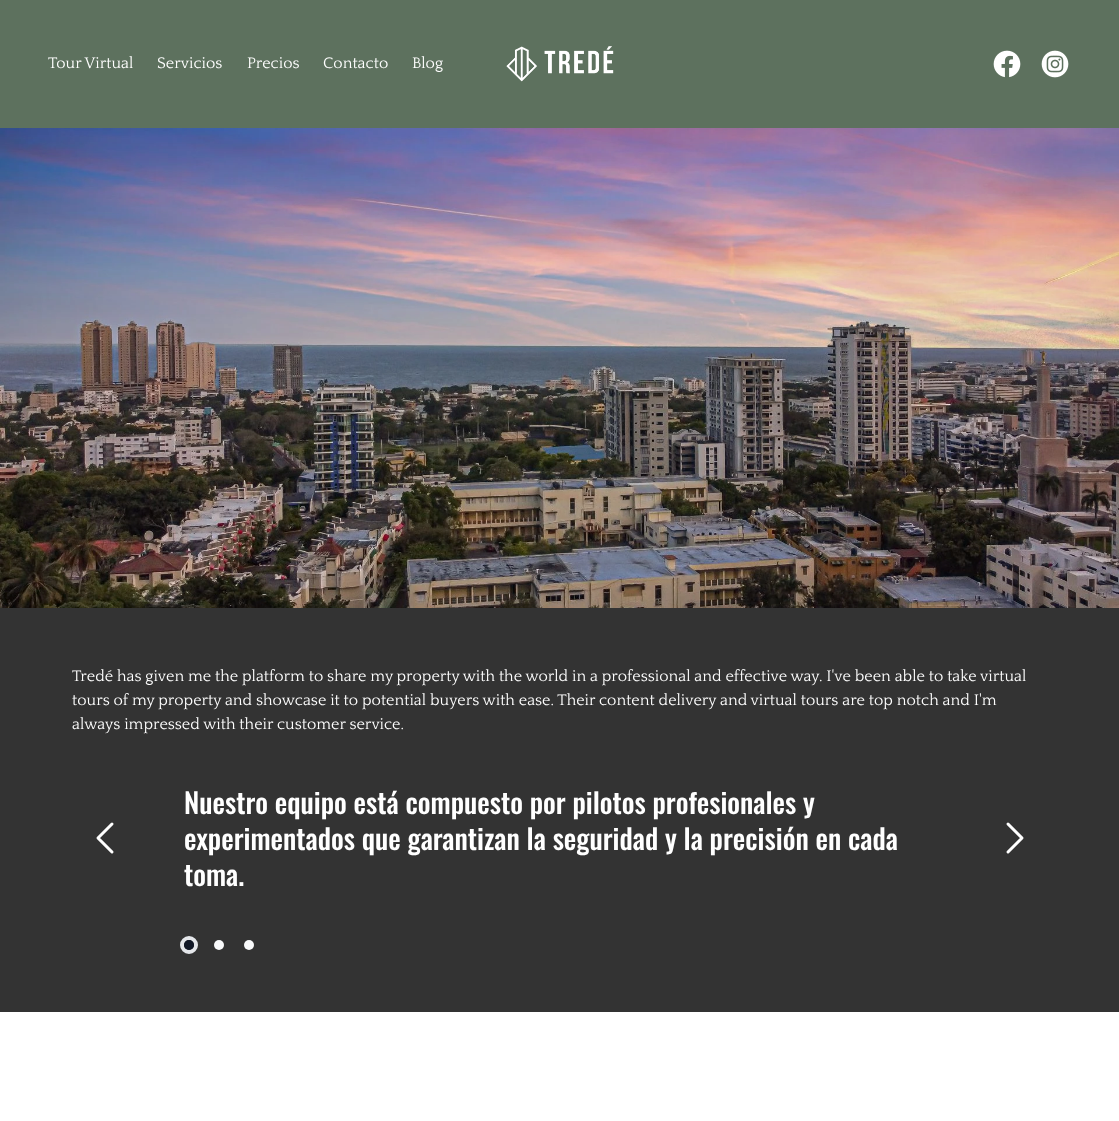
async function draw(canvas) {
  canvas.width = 1119;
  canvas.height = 1121;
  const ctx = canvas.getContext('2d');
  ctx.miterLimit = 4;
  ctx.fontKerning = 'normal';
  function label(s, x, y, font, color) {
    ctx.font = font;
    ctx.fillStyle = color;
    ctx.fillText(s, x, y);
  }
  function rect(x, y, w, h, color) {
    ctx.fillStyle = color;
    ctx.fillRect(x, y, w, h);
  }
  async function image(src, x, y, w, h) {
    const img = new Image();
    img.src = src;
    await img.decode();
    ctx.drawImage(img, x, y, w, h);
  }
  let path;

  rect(0, 0, 1119, 1121, '#fff');
  rect(0, 0, 1119, 128, '#5d715e');
  label('Tour Virtual', 48, 68, '16px Quattrocento', '#fff');
  label('Servicios', 157, 68, '16px Quattrocento', '#fff');
  label('Precios', 247, 68, '16px Quattrocento', '#fff');
  label('Contacto', 323, 68, '16px Quattrocento', '#fff');
  label('Blog', 412, 68, '16px Quattrocento', '#fff');
  await image('assets/img1.png', 506, 46, 108, 36);
  await image('assets/img2.png', 993, 50, 28, 28);
  await image('assets/img3.png', 1041, 50, 28, 28);
  await image('assets/img4.png', 0, 128, 1119, 480);
  rect(0, 608, 1119, 404, '#333');
  label('Tredé has given me the platform to share my property with the world in a professional and effective way. I\'ve been able to take virtual', 72, 681, '16px Quattrocento', '#fff');
  label('tours of my property and showcase it to potential buyers with ease. Their content delivery and virtual tours are top notch and I\'m', 72, 705, '16px Quattrocento', '#fff');
  label('always impressed with their customer service.', 72, 729, '16px Quattrocento', '#fff');
  path = new Path2D('M112 852L98 838L112 824');
  ctx.strokeStyle = '#fff';
  ctx.lineWidth = 3;
  ctx.lineCap = 'round';
  ctx.lineJoin = 'round';
  ctx.stroke(path);
  label('Nuestro equipo está compuesto por pilotos profesionales y', 184, 814, '500 28px Oswald', '#fff');
  label('experimentados que garantizan la seguridad y la precisión en cada', 184, 850, '500 28px Oswald', '#fff');
  label('toma.', 184, 886, '500 28px Oswald', '#fff');
  path = new Path2D('M1008 824L1022 838L1008 852');
  ctx.stroke(path);
  ctx.beginPath();
  ctx.arc(189, 945, 7, 0, 2 * Math.PI);
  ctx.strokeStyle = '#e5e7eb';
  ctx.lineWidth = 4;
  ctx.stroke();
  ctx.fillStyle = '#111827';
  ctx.beginPath();
  ctx.arc(189, 945, 5, 0, 2 * Math.PI);
  ctx.fill();
  ctx.fillStyle = '#f9fafb';
  ctx.beginPath();
  ctx.arc(219, 945, 5, 0, 2 * Math.PI);
  ctx.fill();
  ctx.beginPath();
  ctx.arc(249, 945, 5, 0, 2 * Math.PI);
  ctx.fill();
}

draw(document.querySelector('canvas'));
